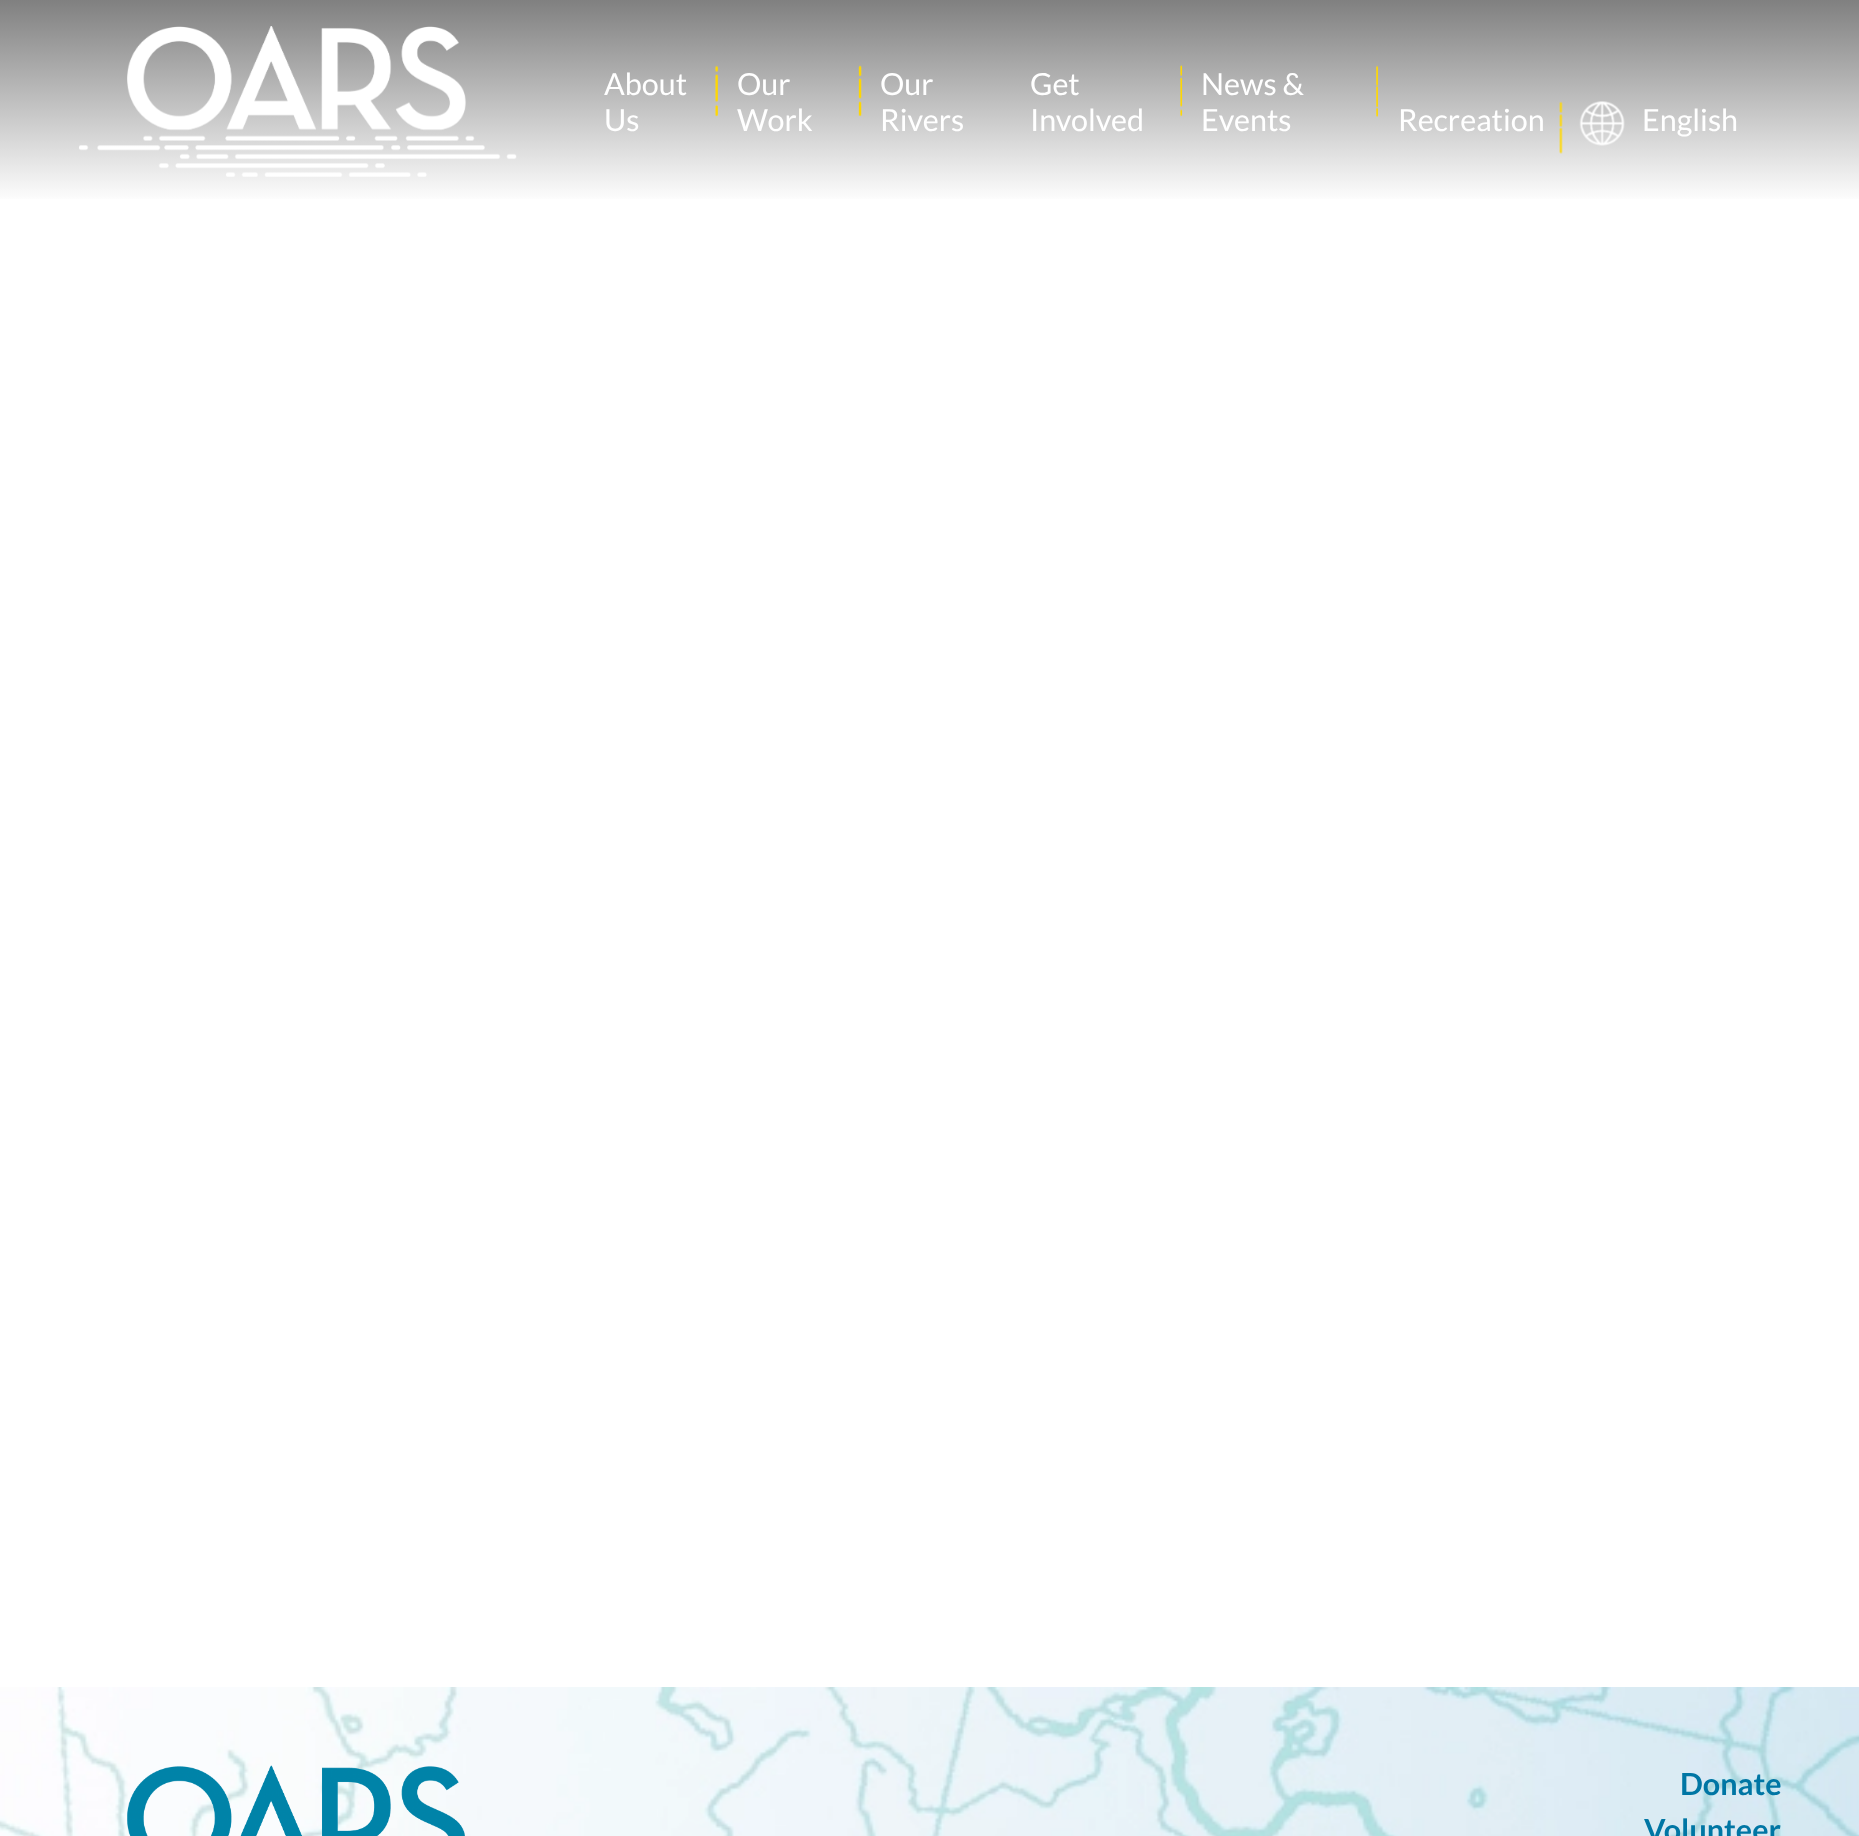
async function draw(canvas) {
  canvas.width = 1859;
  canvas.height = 1836;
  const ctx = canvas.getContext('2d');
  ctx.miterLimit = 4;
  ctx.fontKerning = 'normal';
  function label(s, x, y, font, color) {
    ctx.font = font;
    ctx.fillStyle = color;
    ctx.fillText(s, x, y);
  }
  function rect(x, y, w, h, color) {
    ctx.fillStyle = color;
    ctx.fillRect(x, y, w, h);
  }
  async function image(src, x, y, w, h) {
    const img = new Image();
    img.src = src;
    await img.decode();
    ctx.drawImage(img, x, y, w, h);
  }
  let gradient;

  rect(0, 0, 1859, 1836, '#fff');
  gradient = ctx.createLinearGradient(930, 0, 930, 203);
  gradient.addColorStop(0, '#808080');
  gradient.addColorStop(1, '#fff');
  ctx.fillStyle = gradient;
  ctx.fillRect(0, 0, 1859, 199);
  await image('assets/img1.png', 79, 26, 438, 151);
  label('About', 604, 95, '30.5px Lato', '#fff');
  await image('assets/img2.png', 715, 65, 3, 52);
  label('Us', 604, 131, '30.5px Lato', '#fff');
  label('Our', 737, 95, '30.5px Lato', '#fff');
  await image('assets/img3.png', 858, 65, 4, 52);
  label('Work', 737, 131, '30.5px Lato', '#fff');
  label('Our', 880, 95, '30.5px Lato', '#fff');
  label('Rivers', 880, 131, '30.5px Lato', '#fff');
  label('Get', 1030, 95, '30.5px Lato', '#fff');
  await image('assets/img4.png', 1180, 65, 3, 52);
  label('Involved', 1030, 131, '30.5px Lato', '#fff');
  label('News &', 1201, 95, '30.5px Lato', '#fff');
  await image('assets/img5.png', 1376, 65, 2, 52);
  label('Events', 1201, 131, '30.5px Lato', '#fff');
  label('Recreation', 1398, 131, '30.5px Lato', '#fff');
  await image('assets/img6.png', 1559, 101, 4, 53);
  await image('assets/img7.png', 1579, 101, 46, 45);
  label('English', 1642, 131, '30.5px Lato', '#fff');
  await image('assets/img8.png', 0, 1687, 1859, 149);
  await image('assets/img9.png', 127, 1765, 338, 71);
  label('Donate', 1680, 1795, 'bold 30.5px Lato', '#0076a4');
  label('Volunteer', 1644, 1841, 'bold 30.5px Lato', '#0076a4');
}

draw(document.querySelector('canvas'));
